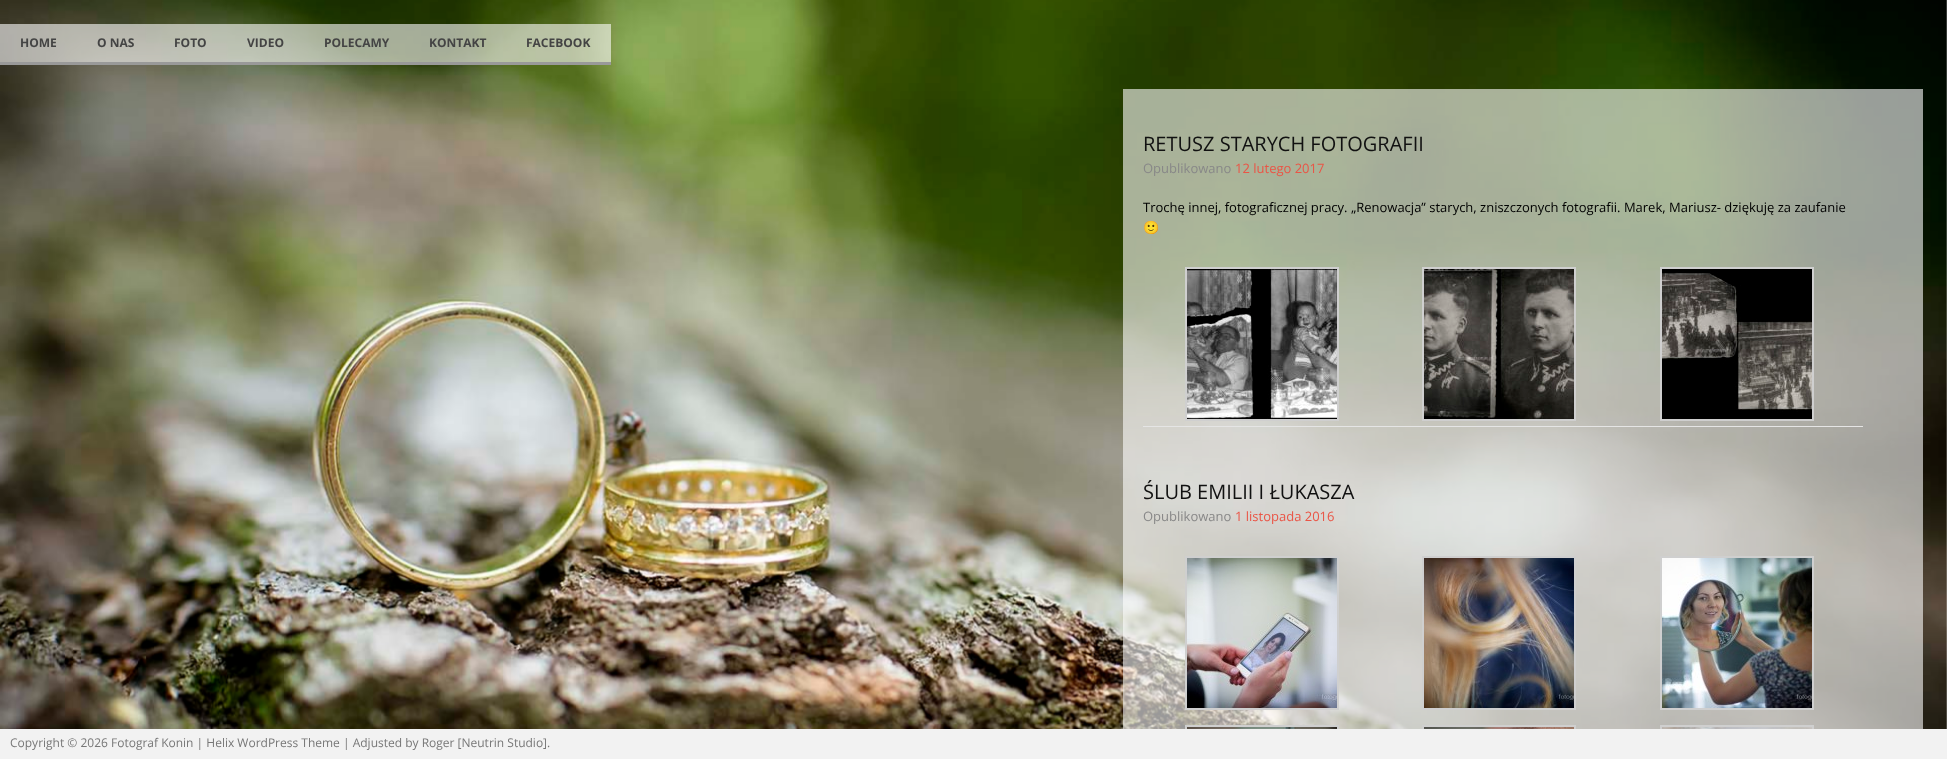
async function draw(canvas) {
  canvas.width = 1947;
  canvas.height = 759;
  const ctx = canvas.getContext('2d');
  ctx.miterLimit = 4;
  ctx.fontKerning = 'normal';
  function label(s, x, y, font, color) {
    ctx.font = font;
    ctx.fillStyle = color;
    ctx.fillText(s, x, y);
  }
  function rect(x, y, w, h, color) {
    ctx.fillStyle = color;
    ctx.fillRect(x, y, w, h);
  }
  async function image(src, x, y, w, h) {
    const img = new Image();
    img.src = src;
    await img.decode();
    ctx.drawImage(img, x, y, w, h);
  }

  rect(0, 0, 1947, 759, '#fff');
  await image('assets/img1.png', 0, 0, 1947, 729);
  rect(0, 24, 77, 38, '#ffffff99');
  rect(0, 62, 611, 3, '#999');
  label('HOME', 20, 47, 'bold 12px Open Sans', '#444');
  rect(77, 24, 77, 38, '#ffffff99');
  label('O NAS', 97, 47, 'bold 12px Open Sans', '#444');
  rect(154, 24, 73, 38, '#ffffff99');
  label('FOTO', 174, 47, 'bold 12px Open Sans', '#444');
  rect(227, 24, 77, 38, '#ffffff99');
  label('VIDEO', 247, 47, 'bold 12px Open Sans', '#444');
  rect(304, 24, 105, 38, '#ffffff99');
  label('POLECAMY', 324, 47, 'bold 12px Open Sans', '#444');
  rect(409, 24, 97, 38, '#ffffff99');
  label('KONTAKT', 429, 47, 'bold 12px Open Sans', '#444');
  rect(506, 24, 105, 38, '#ffffff99');
  label('FACEBOOK', 526, 47, 'bold 12px Open Sans', '#444');
  rect(1123, 89, 800, 640, '#ffffff99');
  label('RETUSZ STARYCH FOTOGRAFII', 1143, 151, '20px Open Sans', '#111');
  label('Opublikowano', 1143, 173, '13px Open Sans', '#888');
  label('12 lutego 2017', 1235, 173, '13px Open Sans', '#ea5546');
  label('Trochę innej, fotograficznej pracy. „Renowacja” starych, zniszczonych fotografii. Marek, Mariusz- dziękuję za zaufanie', 1143, 212, '13px Open Sans', '#000');
  label('🙂', 1143, 232, '13px Noto Color Emoji', '#000');
  ctx.strokeStyle = '#cfcfcf';
  ctx.lineWidth = 2;
  ctx.strokeRect(1186, 268, 152, 152);
  await image('assets/img2.png', 1187, 269, 150, 150);
  ctx.strokeRect(1423, 268, 152, 152);
  await image('assets/img3.png', 1424, 269, 150, 150);
  ctx.strokeRect(1661, 268, 152, 152);
  await image('assets/img4.png', 1662, 269, 150, 150);
  rect(1143, 426, 720, 1, '#e5e5e5');
  label('ŚLUB EMILII I ŁUKASZA', 1143, 499, '20px Open Sans', '#111');
  label('Opublikowano', 1143, 521, '13px Open Sans', '#888');
  label('1 listopada 2016', 1235, 521, '13px Open Sans', '#ea5546');
  ctx.strokeRect(1186, 557, 152, 152);
  await image('assets/img5.png', 1187, 558, 150, 150);
  ctx.strokeRect(1423, 557, 152, 152);
  await image('assets/img6.png', 1424, 558, 150, 150);
  ctx.strokeRect(1661, 557, 152, 152);
  await image('assets/img7.png', 1662, 558, 150, 150);
  ctx.strokeRect(1186, 726, 152, 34);
  await image('assets/img8.png', 1187, 727, 150, 2);
  ctx.strokeRect(1423, 726, 152, 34);
  await image('assets/img9.png', 1424, 727, 150, 2);
  ctx.strokeRect(1661, 726, 152, 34);
  await image('assets/img10.png', 1662, 727, 150, 2);
  rect(0, 729, 1947, 30, '#f2f2f2');
  label('Copyright © 2026 Fotograf Konin | Helix WordPress Theme | Adjusted by Roger [Neutrin Studio].', 10, 747, '12px Open Sans', '#777');
}

draw(document.querySelector('canvas'));
